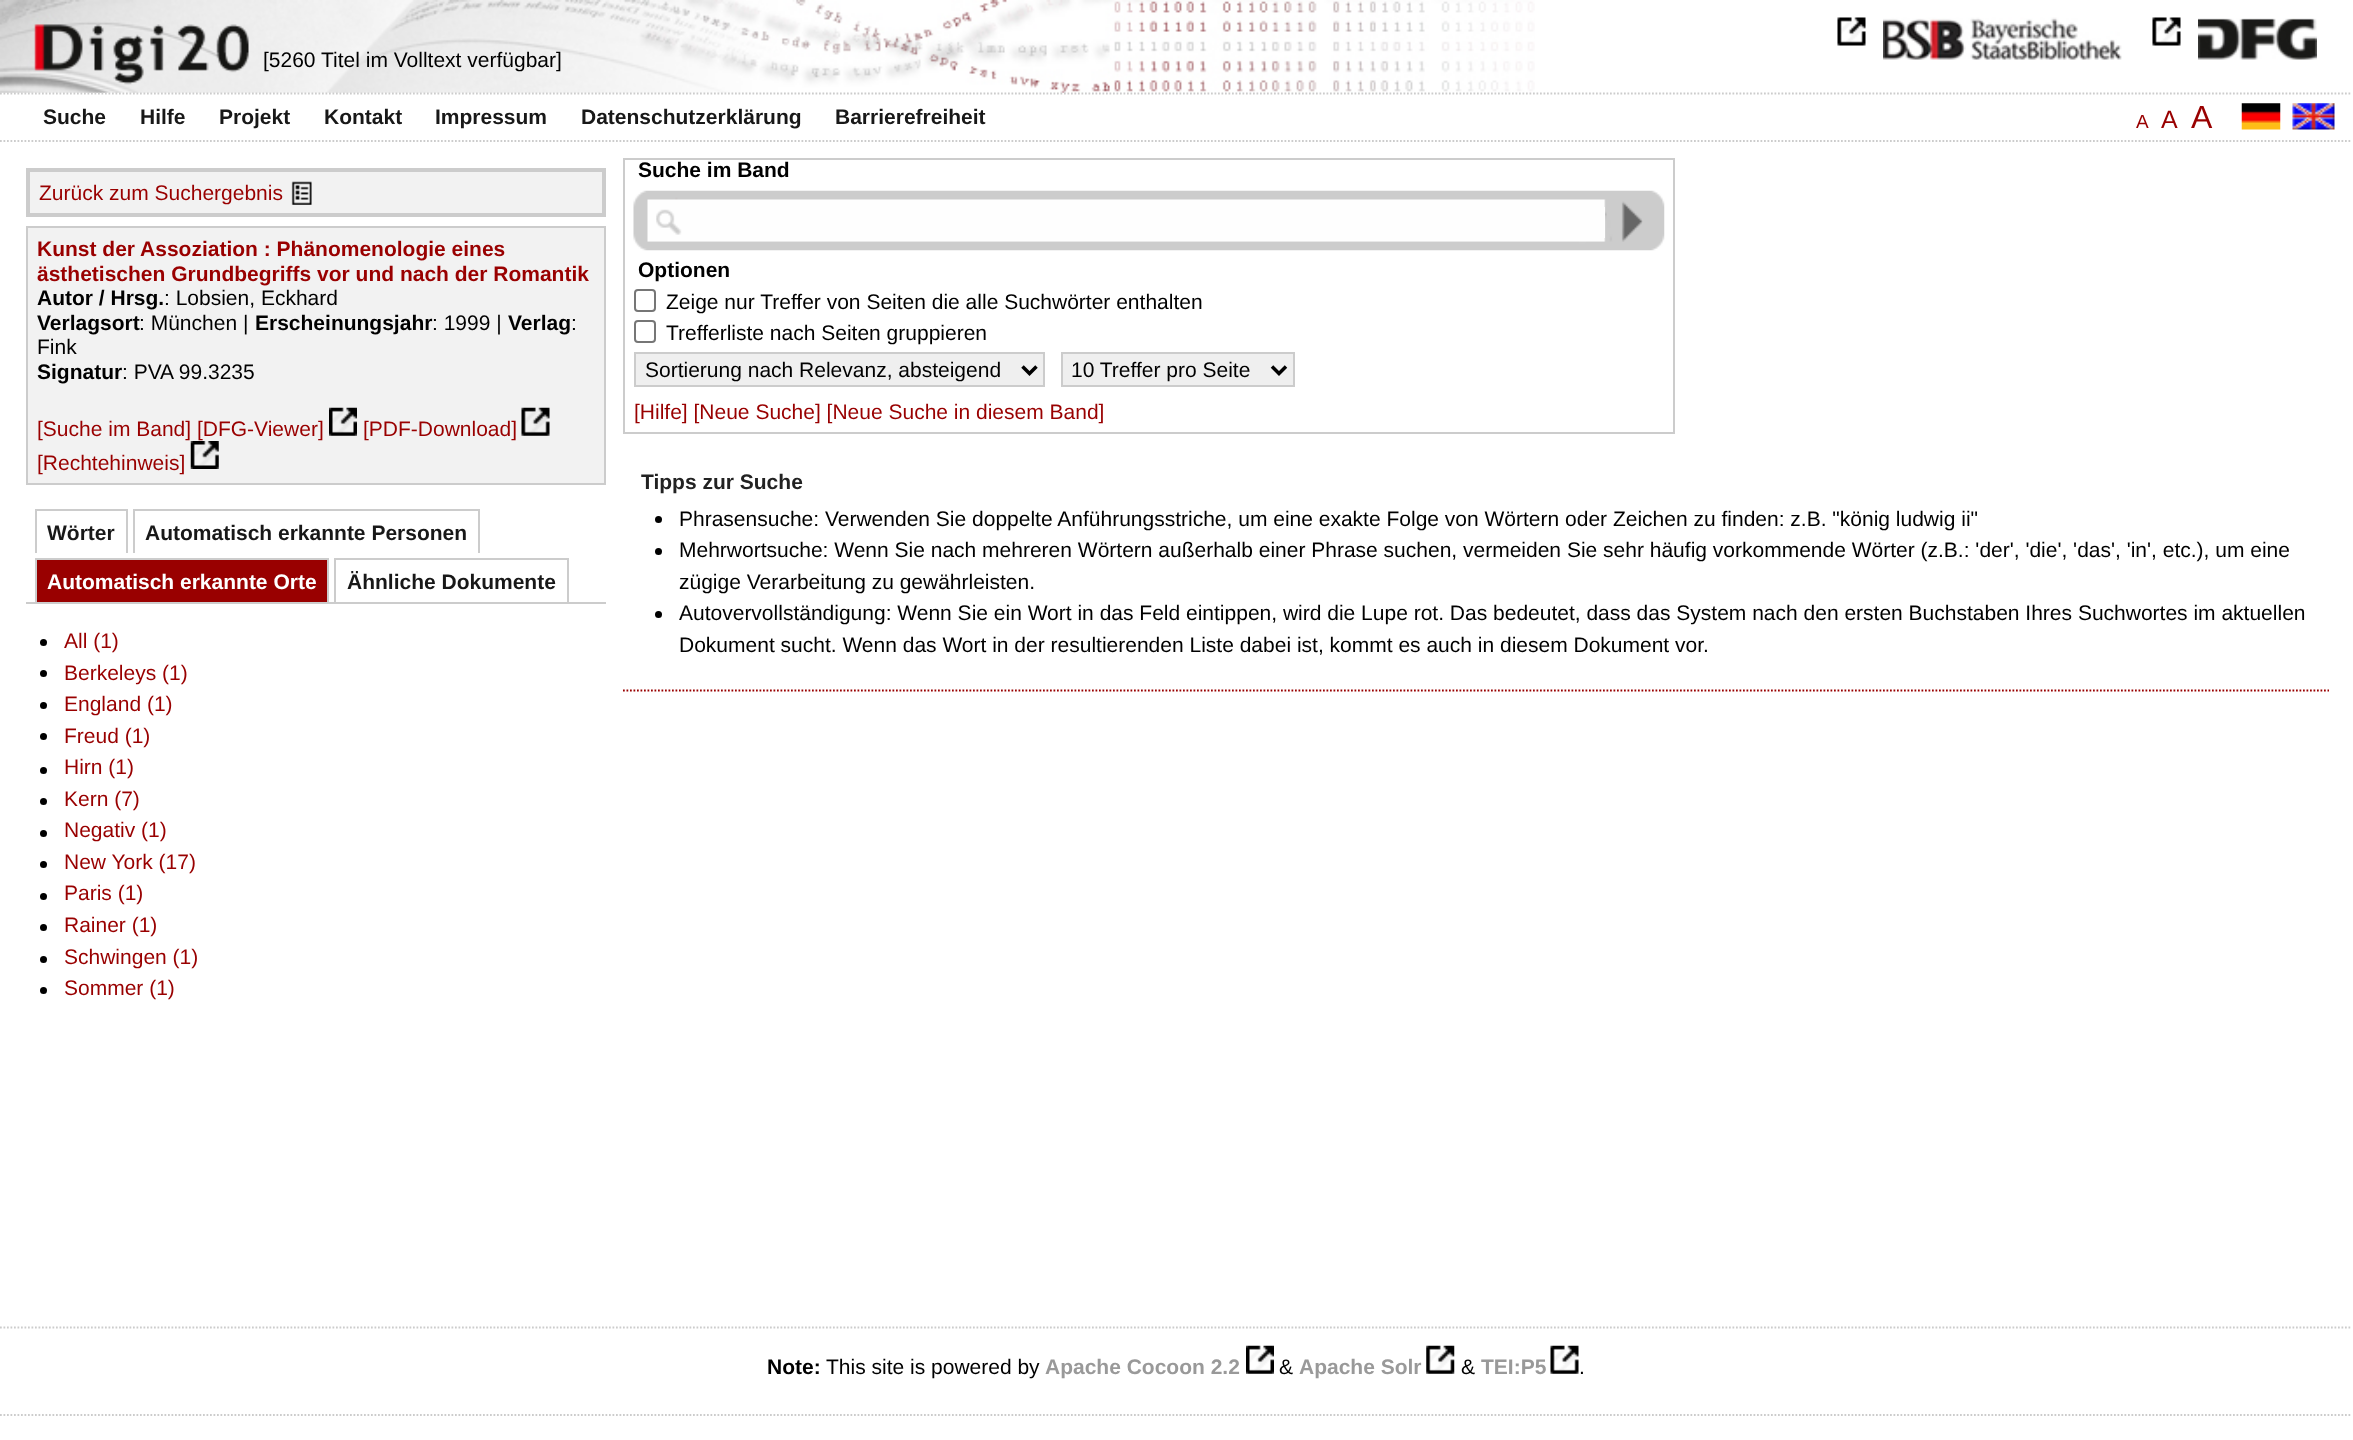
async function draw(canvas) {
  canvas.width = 2353;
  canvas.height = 1440;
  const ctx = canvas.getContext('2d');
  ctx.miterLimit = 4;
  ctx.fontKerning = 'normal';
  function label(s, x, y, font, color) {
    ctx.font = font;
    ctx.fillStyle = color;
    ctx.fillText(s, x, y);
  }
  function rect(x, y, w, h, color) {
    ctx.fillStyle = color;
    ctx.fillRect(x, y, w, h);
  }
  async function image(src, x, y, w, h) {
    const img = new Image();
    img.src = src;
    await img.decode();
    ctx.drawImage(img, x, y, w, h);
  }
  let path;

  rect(0, 0, 2353, 1440, '#fff');
  await image('assets/img1.png', 0, 0, 1535, 93);
  label('[5260 Titel im Volltext verfügbar]', 263, 67, '21px Liberation Sans', '#000');
  await image('assets/img2.png', 1883, 17, 239, 43);
  await image('assets/img3.png', 1837, 17, 29, 29);
  await image('assets/img4.png', 2198, 18, 119, 42);
  await image('assets/img5.png', 2152, 17, 29, 29);
  path = new Path2D('M0 93.5H2352');
  ctx.strokeStyle = '#ccc';
  ctx.lineWidth = 1.8;
  ctx.setLineDash([1.75, 1.75]);
  ctx.stroke(path);
  path = new Path2D('M0 141H2352');
  ctx.stroke(path);
  label('Suche', 43, 124, 'bold 21px Liberation Sans', '#181818');
  label('Hilfe', 140, 124, 'bold 21px Liberation Sans', '#181818');
  label('Projekt', 219, 124, 'bold 21px Liberation Sans', '#181818');
  label('Kontakt', 324, 124, 'bold 21px Liberation Sans', '#181818');
  label('Impressum', 435, 124, 'bold 21px Liberation Sans', '#181818');
  label('Datenschutzerklärung', 581, 124, 'bold 21px Liberation Sans', '#181818');
  label('Barrierefreiheit', 835, 124, 'bold 21px Liberation Sans', '#181818');
  label('A', 2136, 128, '19px Liberation Sans', '#900');
  label('A', 2161, 128, '25px Liberation Sans', '#900');
  label('A', 2191, 128, '32px Liberation Sans', '#900');
  await image('assets/img6.png', 2241, 103, 40, 27);
  await image('assets/img7.png', 2292, 103, 43, 27);
  ctx.fillStyle = '#f2f2f2';
  ctx.beginPath();
  ctx.rect(28, 170, 576, 45);
  ctx.fill();
  ctx.lineWidth = 4;
  ctx.setLineDash([]);
  ctx.stroke();
  label('Zurück zum Suchergebnis', 39, 200, '21px Liberation Sans', '#900');
  await image('assets/img8.png', 291, 181, 21, 24);
  ctx.fillStyle = '#f2f2f2';
  ctx.beginPath();
  ctx.rect(27, 227, 578, 257);
  ctx.fill();
  ctx.lineWidth = 2;
  ctx.stroke();
  label('Kunst der Assoziation : Phänomenologie eines', 37, 256, 'bold 21px Liberation Sans', '#900');
  label('ästhetischen Grundbegriffs vor und nach der Romantik', 37, 281, 'bold 21px Liberation Sans', '#900');
  label('Autor / Hrsg.', 37, 305, 'bold 21px Liberation Sans', '#000');
  label(': Lobsien, Eckhard', 164, 305, '21px Liberation Sans', '#000');
  label('Verlagsort', 37, 330, 'bold 21px Liberation Sans', '#000');
  label(': München |', 139, 330, '21px Liberation Sans', '#000');
  label('Erscheinungsjahr', 255, 330, 'bold 21px Liberation Sans', '#000');
  label(': 1999 |', 432, 330, '21px Liberation Sans', '#000');
  label('Verlag', 508, 330, 'bold 21px Liberation Sans', '#000');
  label(':', 571, 330, '21px Liberation Sans', '#000');
  label('Fink', 37, 354, '21px Liberation Sans', '#000');
  label('Signatur', 37, 379, 'bold 21px Liberation Sans', '#000');
  label(': PVA 99.3235', 122, 379, '21px Liberation Sans', '#000');
  label('[Suche im Band] [DFG-Viewer]', 37, 436, '21px Liberation Sans', '#900');
  await image('assets/img9.png', 329, 407, 28, 29);
  label('[PDF-Download]', 363, 436, '21px Liberation Sans', '#900');
  await image('assets/img10.png', 521, 407, 29, 29);
  label('[Rechtehinweis]', 37, 470, '21px Liberation Sans', '#900');
  await image('assets/img11.png', 190, 441, 29, 28);
  rect(26, 602, 580, 2, '#ccc');
  label('Wörter', 47, 540, 'bold 21px Liberation Sans', '#181818');
  rect(35, 509, 93, 2, '#ccc');
  rect(126, 509, 2, 44, '#ccc');
  rect(35, 509, 2, 44, '#ccc');
  label('Automatisch erkannte Personen', 145, 540, 'bold 21px Liberation Sans', '#181818');
  rect(133, 509, 347, 2, '#ccc');
  rect(478, 509, 2, 44, '#ccc');
  rect(133, 509, 2, 44, '#ccc');
  rect(37, 560, 290, 42, '#900');
  label('Automatisch erkannte Orte', 47, 589, 'bold 21px Liberation Sans', '#fff');
  rect(35, 558, 294, 2, '#ccc');
  rect(327, 558, 2, 44, '#ccc');
  rect(35, 558, 2, 44, '#ccc');
  label('Ähnliche Dokumente', 347, 589, 'bold 21px Liberation Sans', '#181818');
  rect(334, 558, 235, 2, '#ccc');
  rect(567, 558, 2, 44, '#ccc');
  rect(334, 558, 2, 44, '#ccc');
  ctx.fillStyle = '#000';
  ctx.beginPath();
  ctx.arc(43.5, 642.5, 3.5, 0, 2 * Math.PI);
  ctx.fill();
  label('All (1)', 64, 648, '21px Liberation Sans', '#900');
  ctx.fillStyle = '#000';
  ctx.beginPath();
  ctx.arc(43.5, 673.5, 3.5, 0, 2 * Math.PI);
  ctx.fill();
  label('Berkeleys (1)', 64, 680, '21px Liberation Sans', '#900');
  ctx.fillStyle = '#000';
  ctx.beginPath();
  ctx.arc(43.5, 705.5, 3.5, 0, 2 * Math.PI);
  ctx.fill();
  label('England (1)', 64, 711, '21px Liberation Sans', '#900');
  ctx.fillStyle = '#000';
  ctx.beginPath();
  ctx.arc(43.5, 736.5, 3.5, 0, 2 * Math.PI);
  ctx.fill();
  label('Freud (1)', 64, 743, '21px Liberation Sans', '#900');
  ctx.fillStyle = '#000';
  ctx.beginPath();
  ctx.arc(43.5, 770.5, 3.5, 0, 2 * Math.PI);
  ctx.fill();
  label('Hirn (1)', 64, 774, '21px Liberation Sans', '#900');
  ctx.fillStyle = '#000';
  ctx.beginPath();
  ctx.arc(43.5, 801.5, 3.5, 0, 2 * Math.PI);
  ctx.fill();
  label('Kern (7)', 64, 806, '21px Liberation Sans', '#900');
  ctx.fillStyle = '#000';
  ctx.beginPath();
  ctx.arc(43.5, 833.5, 3.5, 0, 2 * Math.PI);
  ctx.fill();
  label('Negativ (1)', 64, 837, '21px Liberation Sans', '#900');
  ctx.fillStyle = '#000';
  ctx.beginPath();
  ctx.arc(43.5, 864.5, 3.5, 0, 2 * Math.PI);
  ctx.fill();
  label('New York (17)', 64, 869, '21px Liberation Sans', '#900');
  ctx.fillStyle = '#000';
  ctx.beginPath();
  ctx.arc(43.5, 896.5, 3.5, 0, 2 * Math.PI);
  ctx.fill();
  label('Paris (1)', 64, 900, '21px Liberation Sans', '#900');
  ctx.fillStyle = '#000';
  ctx.beginPath();
  ctx.arc(43.5, 927.5, 3.5, 0, 2 * Math.PI);
  ctx.fill();
  label('Rainer (1)', 64, 932, '21px Liberation Sans', '#900');
  ctx.fillStyle = '#000';
  ctx.beginPath();
  ctx.arc(43.5, 959.5, 3.5, 0, 2 * Math.PI);
  ctx.fill();
  label('Schwingen (1)', 64, 964, '21px Liberation Sans', '#900');
  ctx.fillStyle = '#000';
  ctx.beginPath();
  ctx.arc(43.5, 990.5, 3.5, 0, 2 * Math.PI);
  ctx.fill();
  label('Sommer (1)', 64, 995, '21px Liberation Sans', '#900');
  ctx.strokeRect(624, 159, 1050, 274);
  label('Suche im Band', 638, 177, 'bold 21px Liberation Sans', '#000');
  await image('assets/img12.png', 633, 190, 1032, 61);
  rect(1604, 207, 1, 31, '#fff');
  await image('assets/img13.png', 656, 209, 26, 26);
  await image('assets/img14.png', 1605, 201, 38, 41);
  label('Optionen', 638, 277, 'bold 21px Liberation Sans', '#000');
  ctx.beginPath();
  ctx.roundRect(635, 290, 20, 21, 3);
  ctx.strokeStyle = '#767676';
  ctx.stroke();
  label('Zeige nur Treffer von Seiten die alle Suchwörter enthalten', 666, 309, '21px Liberation Sans', '#000');
  ctx.beginPath();
  ctx.roundRect(635, 321, 20, 21, 3);
  ctx.stroke();
  label('Trefferliste nach Seiten gruppieren', 666, 340, '21px Liberation Sans', '#000');
  ctx.fillStyle = '#efefef';
  ctx.beginPath();
  ctx.rect(635, 353, 409, 33);
  ctx.fill();
  ctx.strokeStyle = '#ccc';
  ctx.stroke();
  path = new Path2D('M1022.5 366.5L1029.5 373.5L1036.5 366.5');
  ctx.strokeStyle = '#000';
  ctx.lineWidth = 3.5;
  ctx.stroke(path);
  label('Sortierung nach Relevanz, absteigend', 645, 377, '21px Liberation Sans', '#000');
  ctx.fillStyle = '#efefef';
  ctx.beginPath();
  ctx.rect(1062, 353, 232, 33);
  ctx.fill();
  ctx.strokeStyle = '#ccc';
  ctx.lineWidth = 2;
  ctx.stroke();
  path = new Path2D('M1272 366.5L1279 373.5L1286 366.5');
  ctx.strokeStyle = '#000';
  ctx.lineWidth = 3.5;
  ctx.stroke(path);
  label('10 Treffer pro Seite', 1071, 377, '21px Liberation Sans', '#000');
  label('[Hilfe] [Neue Suche] [Neue Suche in diesem Band]', 634, 419, '21px Liberation Sans', '#900');
  path = new Path2D('M623 690.5H2329');
  ctx.strokeStyle = '#900';
  ctx.lineWidth = 1.8;
  ctx.setLineDash([1.75, 1.75]);
  ctx.stroke(path);
  label('Tipps zur Suche', 641, 489, 'bold 21px Liberation Sans', '#222');
  ctx.fillStyle = '#000';
  ctx.beginPath();
  ctx.arc(658.5, 519.5, 3.5, 0, 2 * Math.PI);
  ctx.fill();
  label('Phrasensuche: Verwenden Sie doppelte Anführungsstriche, um eine exakte Folge von Wörtern oder Zeichen zu finden: z.B. "könig ludwig ii"', 679, 526, '21px Liberation Sans', '#000');
  ctx.beginPath();
  ctx.arc(658.5, 551.5, 3.5, 0, 2 * Math.PI);
  ctx.fill();
  label('Mehrwortsuche: Wenn Sie nach mehreren Wörtern außerhalb einer Phrase suchen, vermeiden Sie sehr häufig vorkommende Wörter (z.B.: \'der\', \'die\', \'das\', \'in\', etc.), um eine', 679, 557, '21px Liberation Sans', '#000');
  label('zügige Verarbeitung zu gewährleisten.', 679, 589, '21px Liberation Sans', '#000');
  ctx.beginPath();
  ctx.arc(658.5, 614.5, 3.5, 0, 2 * Math.PI);
  ctx.fill();
  label('Autovervollständigung: Wenn Sie ein Wort in das Feld eintippen, wird die Lupe rot. Das bedeutet, dass das System nach den ersten Buchstaben Ihres Suchwortes im aktuellen', 679, 620, '21px Liberation Sans', '#000');
  label('Dokument sucht. Wenn das Wort in der resultierenden Liste dabei ist, kommt es auch in diesem Dokument vor.', 679, 652, '21px Liberation Sans', '#000');
  path = new Path2D('M0 1327.5H2352');
  ctx.strokeStyle = '#ccc';
  ctx.stroke(path);
  path = new Path2D('M0 1415H2352');
  ctx.stroke(path);
  label('Note:', 767, 1374, 'bold 21px Liberation Sans', '#000');
  label('This site is powered by', 826, 1374, '21px Liberation Sans', '#000');
  label('Apache Cocoon 2.2', 1045, 1374, 'bold 21px Liberation Sans', '#999');
  await image('assets/img15.png', 1246, 1345, 28, 29);
  label('&', 1279, 1374, '21px Liberation Sans', '#000');
  label('Apache Solr', 1299, 1374, 'bold 21px Liberation Sans', '#999');
  await image('assets/img16.png', 1426, 1345, 29, 29);
  label('&', 1461, 1374, '21px Liberation Sans', '#000');
  label('TEI:P5', 1481, 1374, 'bold 21px Liberation Sans', '#999');
  await image('assets/img17.png', 1550, 1345, 29, 29);
  label('.', 1579, 1374, '21px Liberation Sans', '#000');
}

draw(document.querySelector('canvas'));
